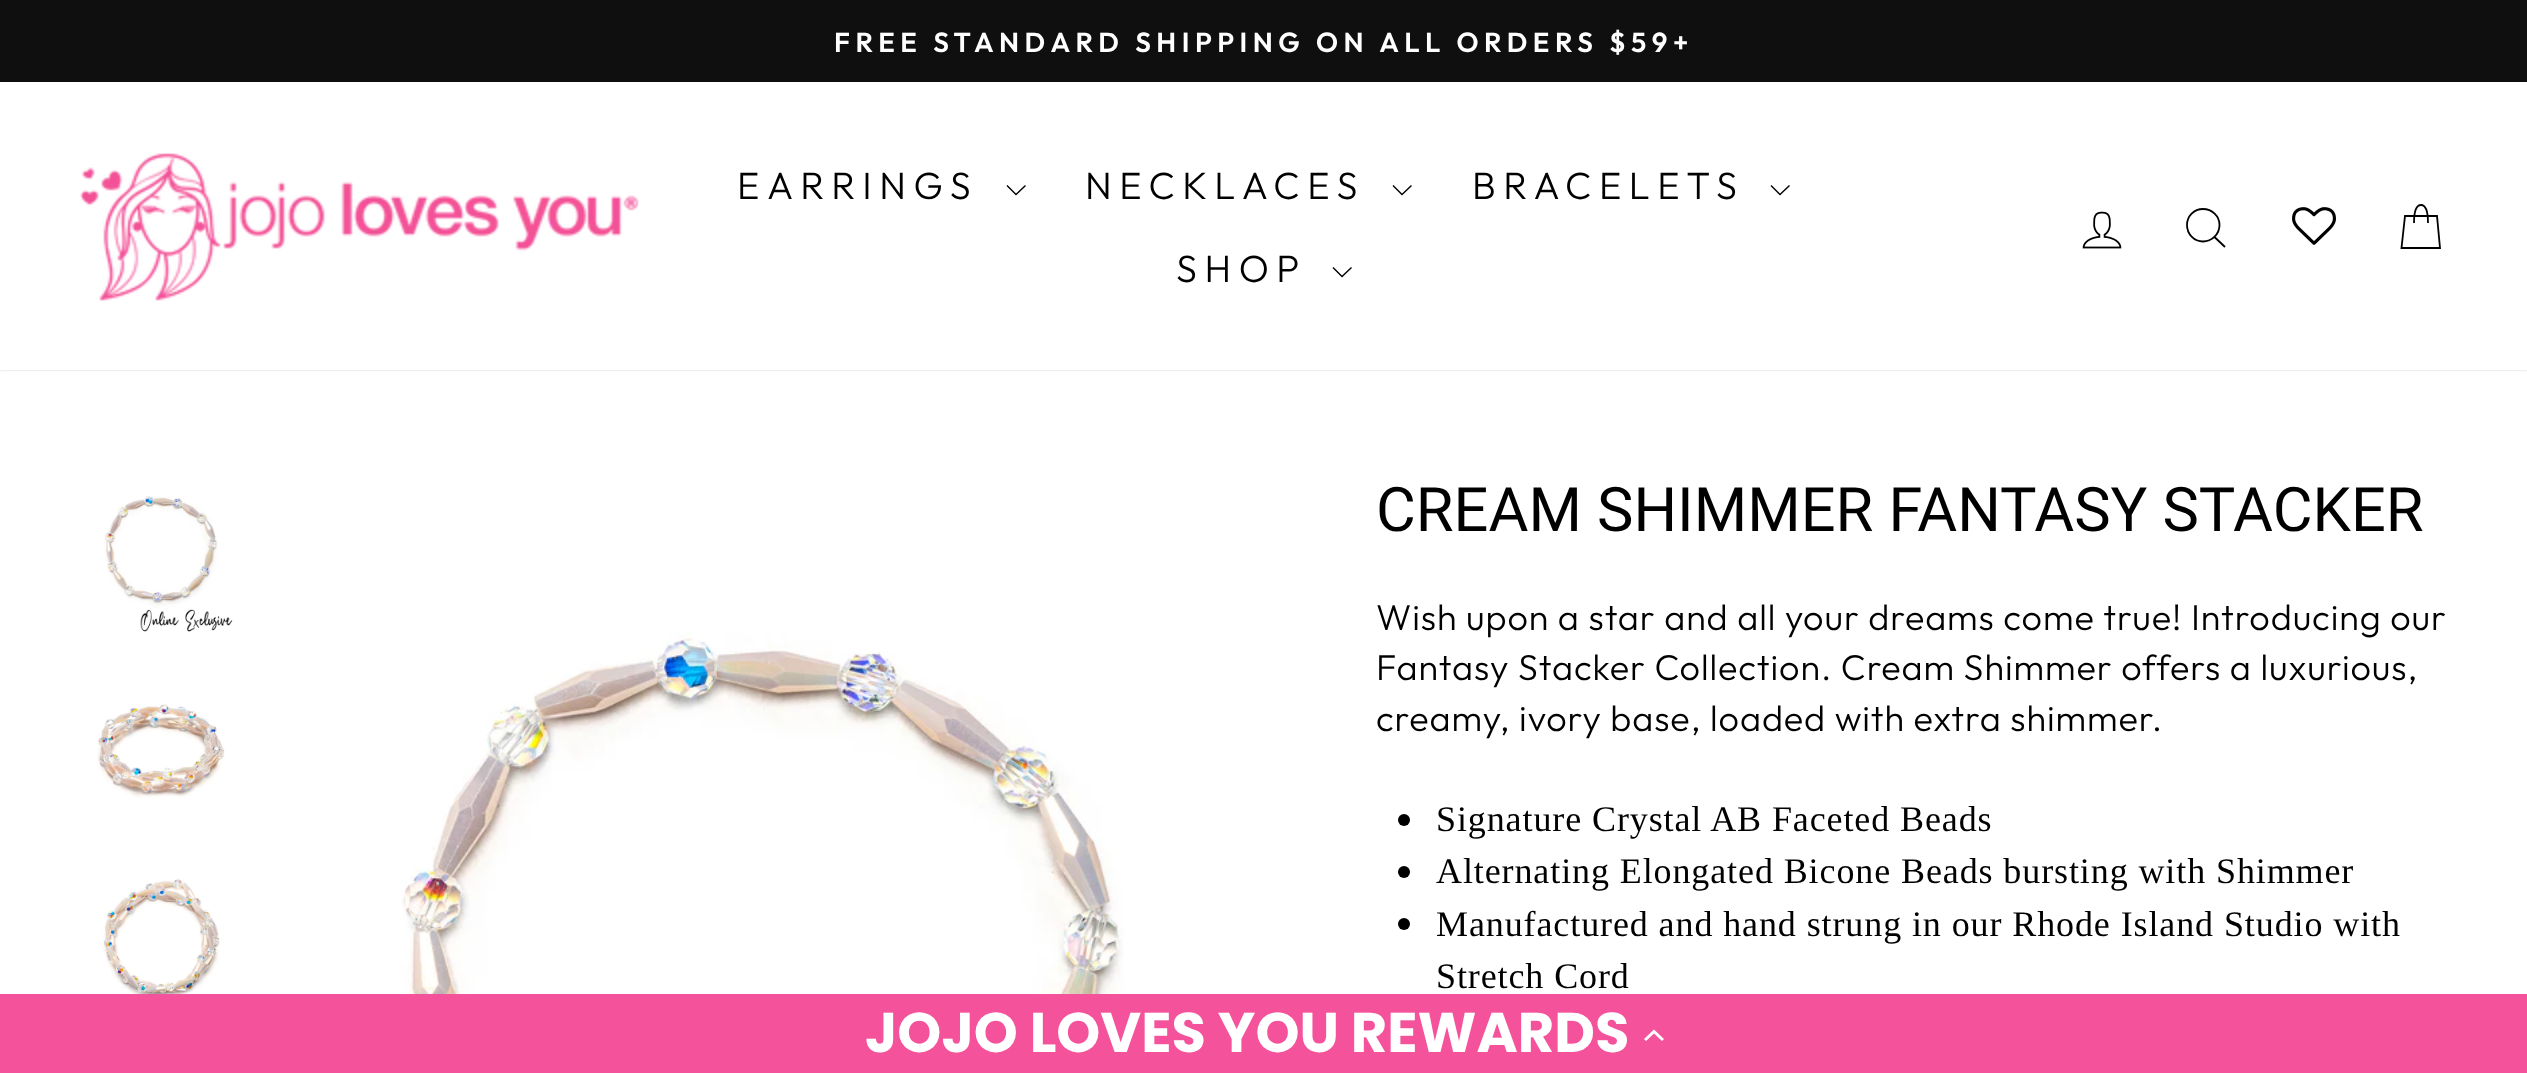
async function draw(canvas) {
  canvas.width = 2527;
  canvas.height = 1073;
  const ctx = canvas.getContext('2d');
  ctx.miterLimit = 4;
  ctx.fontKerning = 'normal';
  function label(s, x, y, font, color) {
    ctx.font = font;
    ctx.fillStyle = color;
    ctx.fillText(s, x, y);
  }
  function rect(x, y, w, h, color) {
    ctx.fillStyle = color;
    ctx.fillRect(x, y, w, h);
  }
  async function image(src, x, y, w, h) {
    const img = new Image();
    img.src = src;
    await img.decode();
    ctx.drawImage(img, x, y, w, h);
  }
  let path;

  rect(0, 0, 2527, 1073, '#fff');
  rect(0, 0, 2527, 82, '#0f0f0f');
  ctx.letterSpacing = '5.5px';
  label('FREE STANDARD SHIPPING ON ALL ORDERS $59+', 834, 52, '600 27.55px Outfit', '#fff');
  ctx.save();
  path = new Path2D('M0 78H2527V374H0ZM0 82H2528V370H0Z');
  ctx.clip(path, 'evenodd');
  ctx.fillStyle = '#00000033';
  ctx.filter = 'blur(1px)';
  ctx.beginPath();
  ctx.rect(0, 82, 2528, 288);
  ctx.fill();
  ctx.filter = 'none';
  ctx.restore();
  await image('assets/img1.png', 80, 152, 559, 150);
  ctx.letterSpacing = '7.5px';
  label('EARRINGS', 737, 199, '300 38px Outfit', '#000');
  path = new Path2D('M1007 185.5L1016 194.5L1025.5 185.5');
  ctx.strokeStyle = '#000';
  ctx.lineWidth = 1.4;
  ctx.stroke(path);
  label('NECKLACES', 1085, 199, '300 38px Outfit', '#000');
  path = new Path2D('M1393 185.5L1402 194.5L1411.5 185.5');
  ctx.stroke(path);
  label('BRACELETS', 1472, 199, '300 38px Outfit', '#000');
  path = new Path2D('M1771 185.5L1780 194.5L1789.5 185.5');
  ctx.stroke(path);
  label('SHOP', 1176, 282, '300 38px Outfit', '#000');
  path = new Path2D('M1333 267.5L1342 276.5L1351.5 267.5');
  ctx.stroke(path);
  await image('assets/img2.png', 2082, 211, 40, 38);
  path = new Path2D('M2219.5 225C2219.5 234 2212 241.5 2203 241.5C2194 241.5 2187 234 2187 225C2187 216 2194 209 2203 209C2212 209 2219.5 216 2219.5 225ZM2225 247L2214.5 237');
  ctx.lineWidth = 1.8;
  ctx.stroke(path);
  await image('assets/img3.png', 2292, 207, 44, 38);
  path = new Path2D('M2414 223C2414 209 2417 205 2421 205C2425 205 2428 209 2428 223M2405 216H2437L2440 248H2401.5Z');
  ctx.stroke(path);
  await image('assets/img4.png', 104, 496, 129, 136);
  await image('assets/img5.png', 97, 704, 128, 95);
  await image('assets/img6.png', 103, 878, 117, 116);
  await image('assets/img7.png', 401, 631, 723, 363);
  ctx.letterSpacing = '0px';
  label('CREAM SHIMMER FANTASY STACKER', 1376, 531, '61.25px Roboto', '#000');
  ctx.letterSpacing = '0.9px';
  label('Wish upon a star and all your dreams come true! Introducing our', 1376, 630, '300 36px Outfit', '#000');
  label('Fantasy Stacker Collection. Cream Shimmer offers a luxurious,', 1376, 680, '300 36px Outfit', '#000');
  label('creamy, ivory base, loaded with extra shimmer.', 1376, 731, '300 36px Outfit', '#000');
  ctx.beginPath();
  ctx.arc(1404, 820, 6, 0, 2 * Math.PI);
  ctx.fill();
  label('Signature Crystal AB Faceted Beads', 1436, 831, '36px Liberation Serif', '#000');
  ctx.beginPath();
  ctx.arc(1404, 872, 6, 0, 2 * Math.PI);
  ctx.fill();
  label('Alternating Elongated Bicone Beads bursting with Shimmer', 1436, 883, '36px Liberation Serif', '#000');
  ctx.beginPath();
  ctx.arc(1404, 924, 6, 0, 2 * Math.PI);
  ctx.fill();
  label('Manufactured and hand strung in our Rhode Island Studio with', 1436, 936, '36px Liberation Serif', '#000');
  label('Stretch Cord', 1436, 988, '36px Liberation Serif', '#000');
  rect(0, 994, 2527, 79, '#f4539b');
  ctx.letterSpacing = '0px';
  label('JOJO LOVES YOU REWARDS', 865, 1052, 'bold 56px Poppins', '#fff');
  path = new Path2D('M1654 1033.5L1646 1041L1644 1039L1654 1029.5L1664 1039L1662 1041Z');
  ctx.fill(path);
}

draw(document.querySelector('canvas'));
